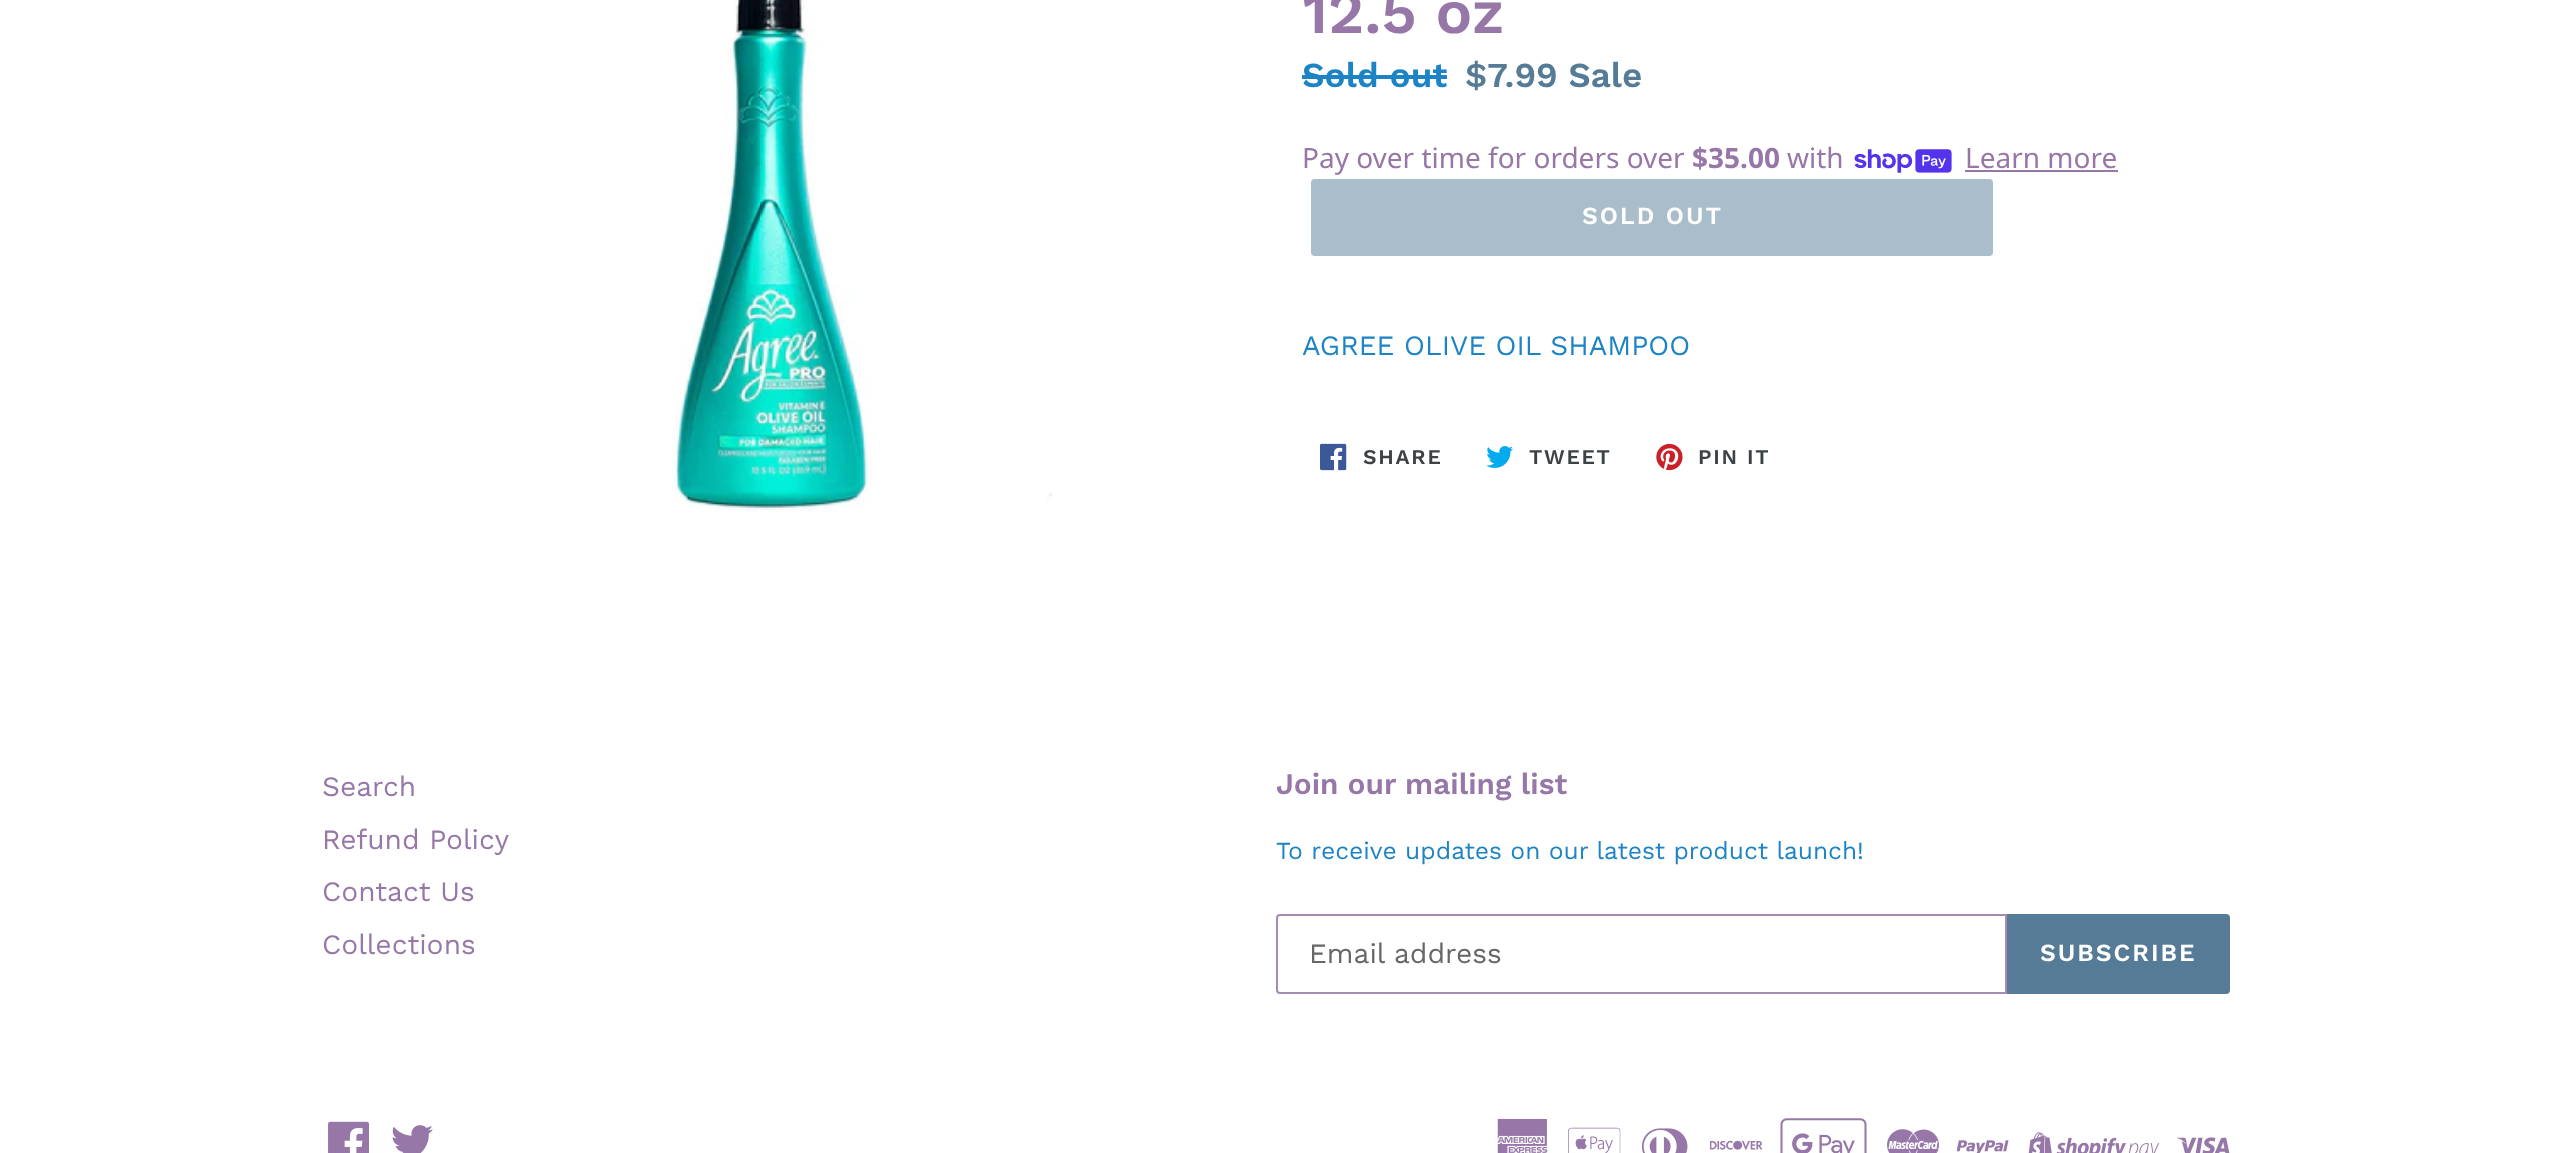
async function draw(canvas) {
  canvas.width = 2551;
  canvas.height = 1153;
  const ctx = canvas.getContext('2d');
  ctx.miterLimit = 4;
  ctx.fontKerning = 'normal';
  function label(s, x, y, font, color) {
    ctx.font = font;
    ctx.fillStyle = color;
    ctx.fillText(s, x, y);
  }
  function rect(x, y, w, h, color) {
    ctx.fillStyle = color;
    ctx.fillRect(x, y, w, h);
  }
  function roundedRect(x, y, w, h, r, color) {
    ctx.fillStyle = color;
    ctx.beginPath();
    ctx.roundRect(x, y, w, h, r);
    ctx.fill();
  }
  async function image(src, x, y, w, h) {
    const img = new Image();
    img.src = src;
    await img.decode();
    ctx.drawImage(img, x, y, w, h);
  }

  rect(0, 0, 2551, 1153, '#fff');
  await image('assets/img1.png', 671, 0, 382, 513);
  label('12.5 oz', 1302, 33, '600 61px Work Sans', '#9677a8');
  label('Sold out', 1302, 87, '600 35px Work Sans', '#1c83c5');
  rect(1302, 75, 145, 4, '#1c83c5');
  label('$7.99 Sale', 1465, 87, '600 35px Work Sans', '#557b97');
  label('Pay over time for orders over', 1302, 168, '28px Noto Sans', '#9677a8');
  label('$35.00', 1692, 168, 'bold 28px Noto Sans', '#9677a8');
  label('with', 1787, 168, '28px Noto Sans', '#9677a8');
  await image('assets/img2.png', 1854, 149, 98, 24);
  label('Learn more', 1965, 168, '28px Noto Sans', '#9677a8');
  rect(1965, 170, 153, 2, '#9677a8');
  roundedRect(1311, 179, 682, 77, 4, '#aabdcb');
  ctx.letterSpacing = '2px';
  label('SOLD OUT', 1582, 224, '600 24.5px Work Sans', '#fff');
  ctx.letterSpacing = '0px';
  label('AGREE OLIVE OIL SHAMPOO', 1302, 355, '28px Work Sans', '#1c83c5');
  await image('assets/img3.png', 1320, 443, 27, 28);
  ctx.letterSpacing = '1.75px';
  label('SHARE', 1363, 464, '600 21px Work Sans', '#3d4246');
  await image('assets/img4.png', 1486, 446, 27, 22);
  label('TWEET', 1529, 464, '600 21px Work Sans', '#3d4246');
  await image('assets/img5.png', 1656, 443, 27, 28);
  label('PIN IT', 1698, 464, '600 21px Work Sans', '#3d4246');
  ctx.letterSpacing = '0px';
  label('Search', 322, 796, '28px Work Sans', '#9677a8');
  label('Refund Policy', 322, 849, '28px Work Sans', '#9677a8');
  label('Contact Us', 322, 901, '28px Work Sans', '#9677a8');
  label('Collections', 322, 954, '28px Work Sans', '#9677a8');
  label('Join our mailing list', 1276, 794, '600 29.75px Work Sans', '#9677a8');
  label('To receive updates on our latest product launch!', 1276, 859, '24.5px Work Sans', '#1c83c5');
  ctx.beginPath();
  ctx.roundRect(1277, 915, 729, 78, [3, 0, 0, 3]);
  ctx.strokeStyle = '#a68bb5';
  ctx.lineWidth = 2;
  ctx.stroke();
  label('Email address', 1309, 963, '28px Work Sans', '#666');
  ctx.fillStyle = '#557b97';
  ctx.beginPath();
  ctx.roundRect(2007, 914, 223, 80, [0, 4, 4, 0]);
  ctx.fill();
  ctx.letterSpacing = '2px';
  label('SUBSCRIBE', 2040, 961, '600 24.5px Work Sans', '#fff');
  await image('assets/img6.png', 328, 1121, 41, 32);
  await image('assets/img7.png', 392, 1125, 41, 28);
  await image('assets/img8.png', 1497, 1118, 51, 35);
  await image('assets/img9.png', 1568, 1127, 53, 26);
  await image('assets/img10.png', 1641, 1128, 47, 25);
  await image('assets/img11.png', 1710, 1140, 52, 10);
  await image('assets/img12.png', 1780, 1118, 87, 35);
  await image('assets/img13.png', 1887, 1129, 52, 24);
  await image('assets/img14.png', 1957, 1140, 52, 13);
  await image('assets/img15.png', 2028, 1132, 132, 21);
  await image('assets/img16.png', 2177, 1137, 53, 16);
}

draw(document.querySelector('canvas'));
